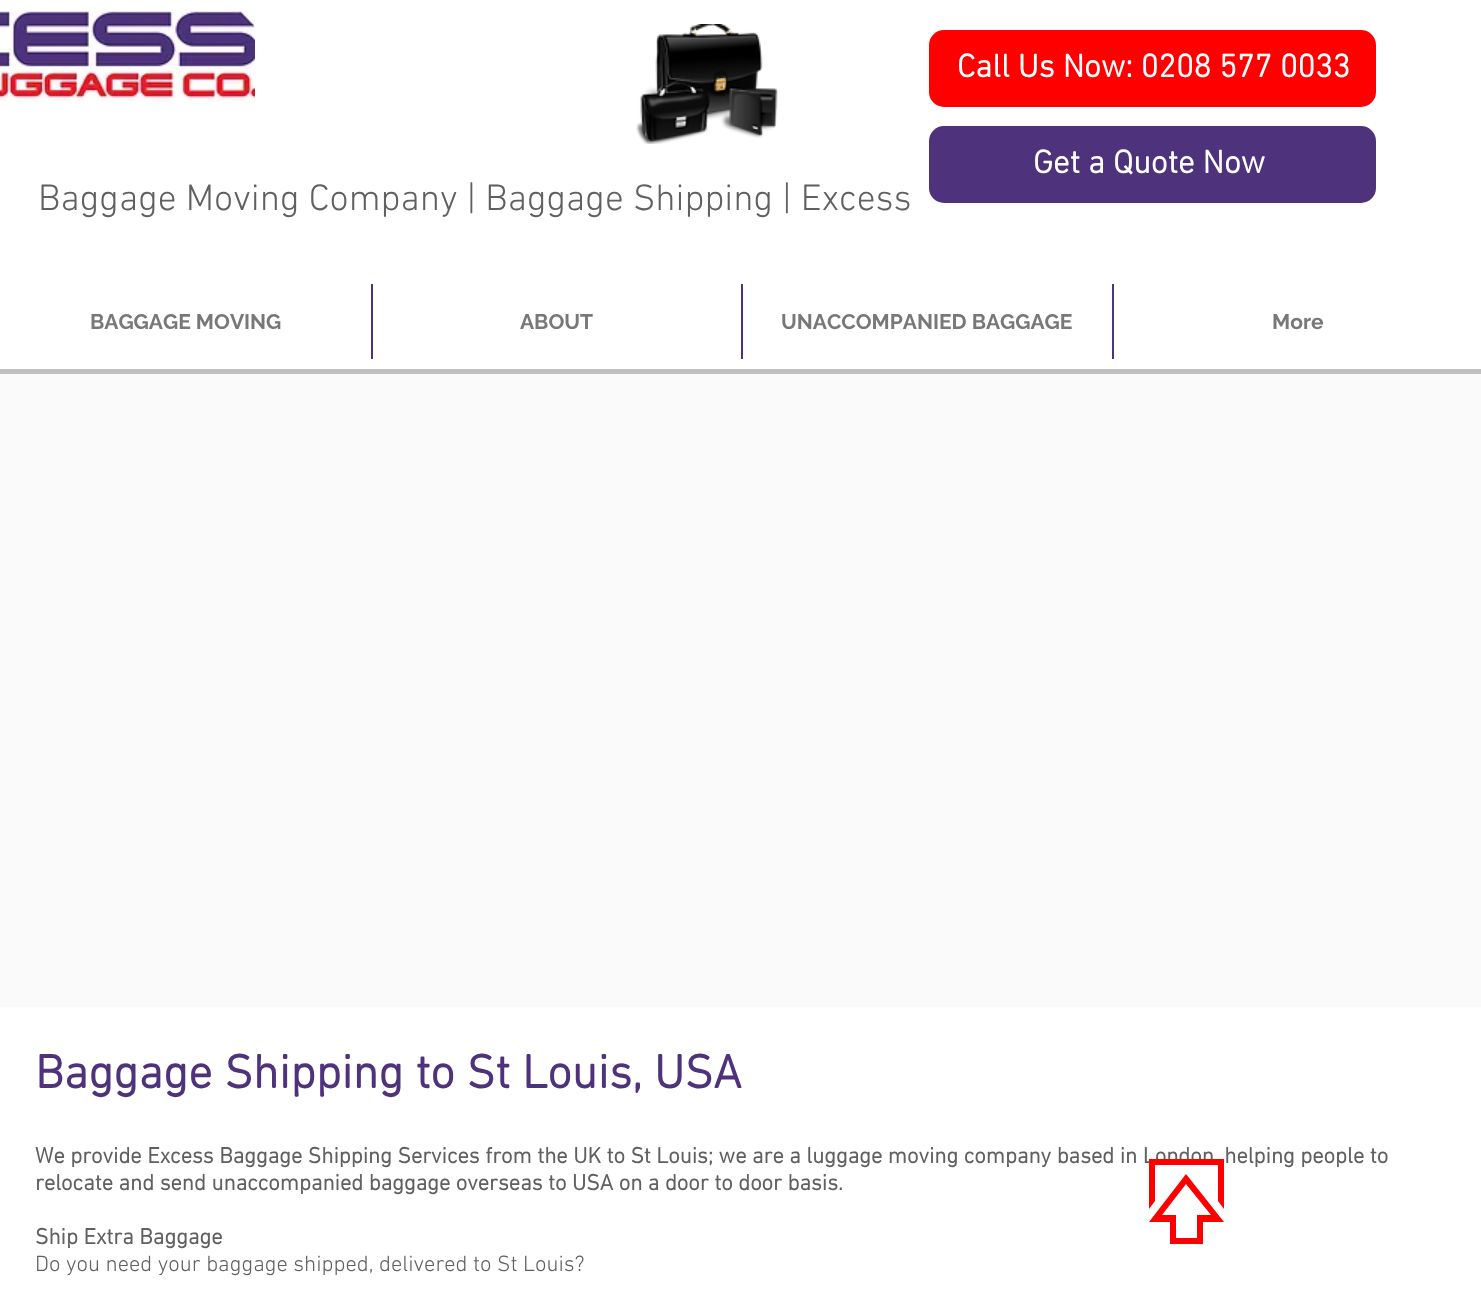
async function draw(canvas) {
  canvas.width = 1481;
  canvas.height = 1291;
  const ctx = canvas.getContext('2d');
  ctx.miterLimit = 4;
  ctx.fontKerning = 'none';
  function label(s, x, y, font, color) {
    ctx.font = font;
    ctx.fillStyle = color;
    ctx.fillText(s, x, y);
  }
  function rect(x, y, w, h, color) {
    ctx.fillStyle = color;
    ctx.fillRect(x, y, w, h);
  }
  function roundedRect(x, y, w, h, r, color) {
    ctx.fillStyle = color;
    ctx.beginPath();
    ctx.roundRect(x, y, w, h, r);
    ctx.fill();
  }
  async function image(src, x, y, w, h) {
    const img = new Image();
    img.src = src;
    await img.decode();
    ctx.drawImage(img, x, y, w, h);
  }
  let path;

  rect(0, 0, 1481, 1291, '#fff');
  roundedRect(929, 30, 447, 77, 15, '#f00');
  label('Call Us Now: 0208 577 0033', 957, 77, 'bold 33px "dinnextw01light"', '#fff');
  roundedRect(929, 126, 447, 77, 15, '#4e327c');
  label('Get a Quote Now', 1033, 173, 'bold 33px "dinnextw01light"', '#fff');
  await image('assets/img1.png', 0, 11, 255, 91);
  await image('assets/img2.png', 636, 24, 142, 120);
  label('Baggage Moving Company | Baggage Shipping | Excess', 38, 210, '300 37.5px "dinnextw01light"', '#606060');
  label('BAGGAGE MOVING', 90, 329, 'bold 21px Raleway', '#787878');
  rect(371, 284, 2, 75, '#4e327c');
  label('ABOUT', 520, 329, 'bold 21px Raleway', '#787878');
  rect(741, 284, 2, 75, '#4e327c');
  label('UNACCOMPANIED BAGGAGE', 781, 329, 'bold 21px Raleway', '#787878');
  rect(1112, 284, 2, 75, '#4e327c');
  label('More', 1272, 329, 'bold 21px Raleway', '#787878');
  rect(0, 369, 1481, 5, '#c0c0c0');
  rect(0, 374, 1481, 633, '#fafafa');
  label('Baggage Shipping to St Louis, USA', 35, 1088, 'bold 48px "dinnextw01light"', '#4e327c');
  label('We provide Excess Baggage Shipping Services from the UK to St Louis; we are a luggage moving company based in London, helping people to', 35, 1163, 'bold 22.5px "dinnextw01light"', '#606060');
  label('relocate and send unaccompanied baggage overseas to USA on a door to door basis.', 35, 1190, 'bold 22.5px "dinnextw01light"', '#606060');
  label('Ship Extra Baggage', 35, 1244, 'bold 22.5px "dinnextw01light"', '#606060');
  label('Do you need your baggage shipped, delivered to St Louis?', 35, 1271, '300 22.5px "dinnextw01light"', '#606060');
  ctx.fillStyle = '#f00';
  path = new Path2D('M1224 1222H1203V1244H1170V1222H1149L1186 1174ZM1197 1238V1215H1211L1186 1184L1162 1215H1176V1238Z');
  ctx.fill(path);
  path = new Path2D('M1149 1209L1155 1201V1165H1218V1201L1224 1209V1159H1149Z');
  ctx.fill(path);
}

draw(document.querySelector('canvas'));
